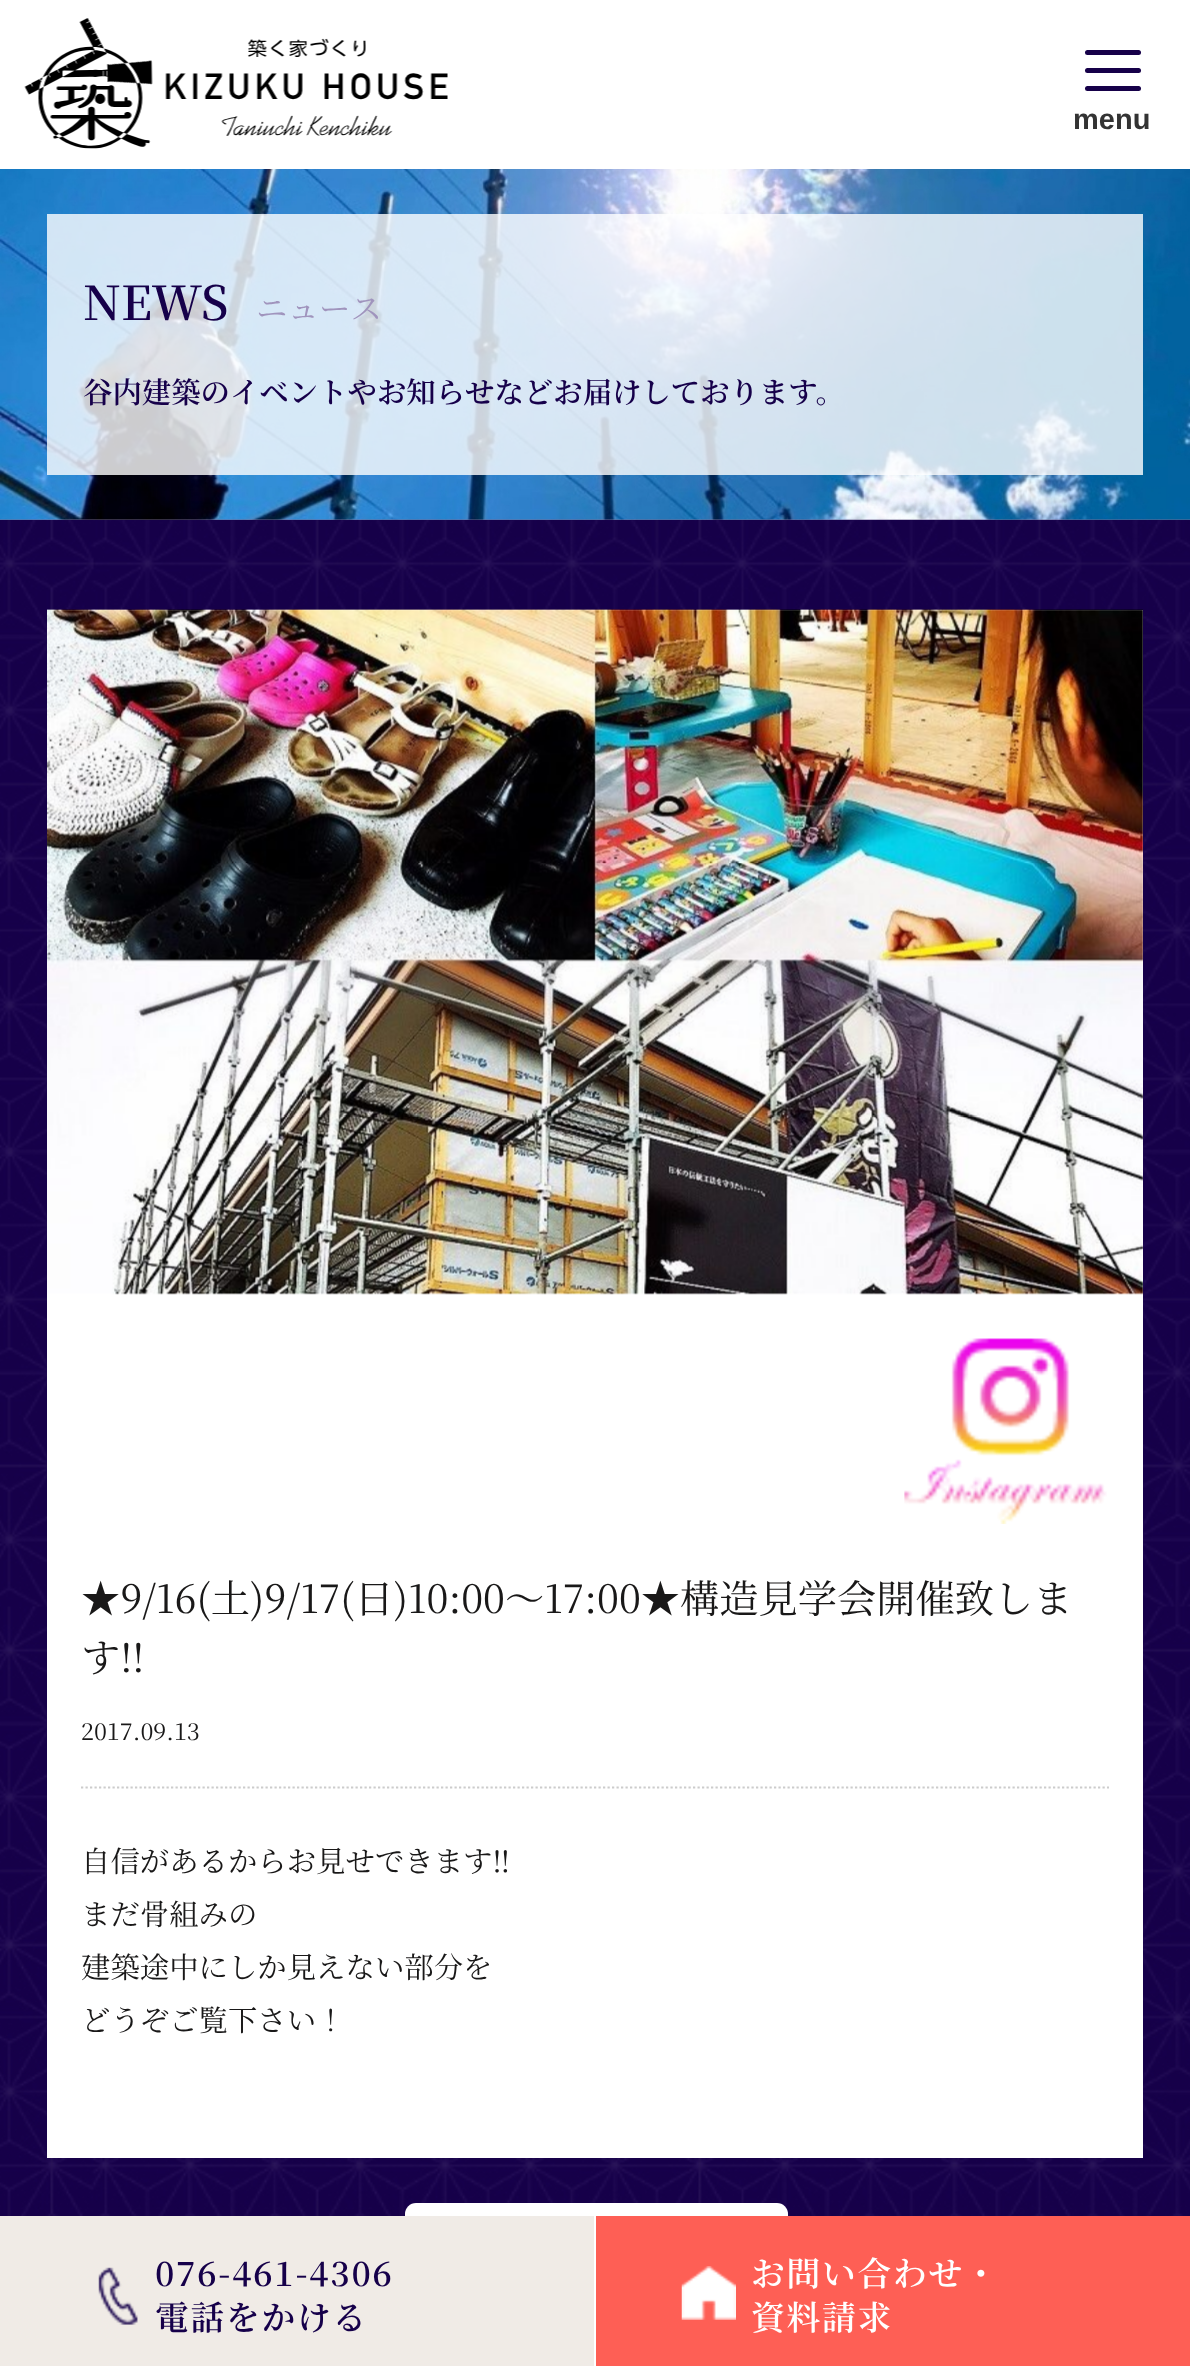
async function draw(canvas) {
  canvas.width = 1190;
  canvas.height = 2366;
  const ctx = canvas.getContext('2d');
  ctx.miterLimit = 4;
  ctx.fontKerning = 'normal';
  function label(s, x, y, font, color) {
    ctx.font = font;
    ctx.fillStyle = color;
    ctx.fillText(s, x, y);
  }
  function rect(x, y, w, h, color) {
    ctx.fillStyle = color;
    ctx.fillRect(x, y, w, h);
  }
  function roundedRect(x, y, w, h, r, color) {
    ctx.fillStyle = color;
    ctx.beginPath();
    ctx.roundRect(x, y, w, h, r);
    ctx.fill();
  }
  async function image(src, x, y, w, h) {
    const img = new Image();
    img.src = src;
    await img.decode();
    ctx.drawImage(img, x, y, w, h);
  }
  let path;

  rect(0, 0, 1190, 2366, '#fff');
  await image('assets/img1.png', 24, 18, 424, 131);
  roundedRect(1085, 50, 56, 5, 2.5, '#160049');
  roundedRect(1085, 68, 56, 5, 2.5, '#160049');
  roundedRect(1085, 86, 56, 5, 2.5, '#160049');
  label('menu', 1073, 129, 'bold 29px Liberation Sans', '#333');
  await image('assets/img2.png', 0, 169, 1190, 351);
  rect(47, 214, 1096, 261, '#ffffffcc');
  label('NEWS', 83, 320, '600 47px Noto Serif JP', '#16004a');
  label('ニュース', 256, 320, '31.5px Noto Serif JP', '#a094bd');
  label('谷内建築のイベントやお知らせなどお届けしております。', 83, 403, '600 29.4px Noto Serif JP', '#16004a');
  await image('assets/img3.png', 0, 519, 1190, 1697);
  rect(47, 610, 1096, 1548, '#fff');
  await image('assets/img4.png', 47, 609, 1096, 686);
  await image('assets/img5.png', 904, 1338, 203, 186);
  path = new Path2D('M81 1787.5H1109');
  ctx.strokeStyle = '#ccc';
  ctx.lineWidth = 2.2;
  ctx.setLineDash([2.25, 2.25]);
  ctx.stroke(path);
  label('★9/16(土)9/17(日)10:00～17:00★構造見学会開催致しま', 81, 1613, '39.25px Noto Serif JP', '#191818');
  label('す!!', 81, 1672, '39.25px Noto Serif JP', '#191818');
  label('2017.09.13', 81, 1740, '23.5px Noto Serif JP', '#191818');
  label('自信があるからお見せできます‼', 81, 1872, '29.4px Noto Serif JP', '#191818');
  label('まだ骨組みの', 81, 1925, '29.4px Noto Serif JP', '#191818');
  label('建築途中にしか見えない部分を', 81, 1978, '29.4px Noto Serif JP', '#191818');
  label('どうぞご覧下さい！', 81, 2031, '29.4px Noto Serif JP', '#191818');
  roundedRect(405, 2203, 383, 79, 11, '#fff');
  rect(0, 2216, 594, 150, '#f0ebe6');
  await image('assets/img6.png', 98, 2267, 40, 58);
  ctx.letterSpacing = '1.75px';
  label('076-461-4306', 155, 2286, '600 33.75px Noto Serif JP', '#16004a');
  label('電話をかける', 155, 2330, '600 33.75px Noto Serif JP', '#16004a');
  rect(596, 2216, 594, 150, '#fe5f55');
  await image('assets/img7.png', 681, 2266, 55, 54);
  label('お問い合わせ・', 751, 2286, '600 33.75px Noto Serif JP', '#fff');
  label('資料請求', 751, 2330, '600 33.75px Noto Serif JP', '#fff');
}

draw(document.querySelector('canvas'));
